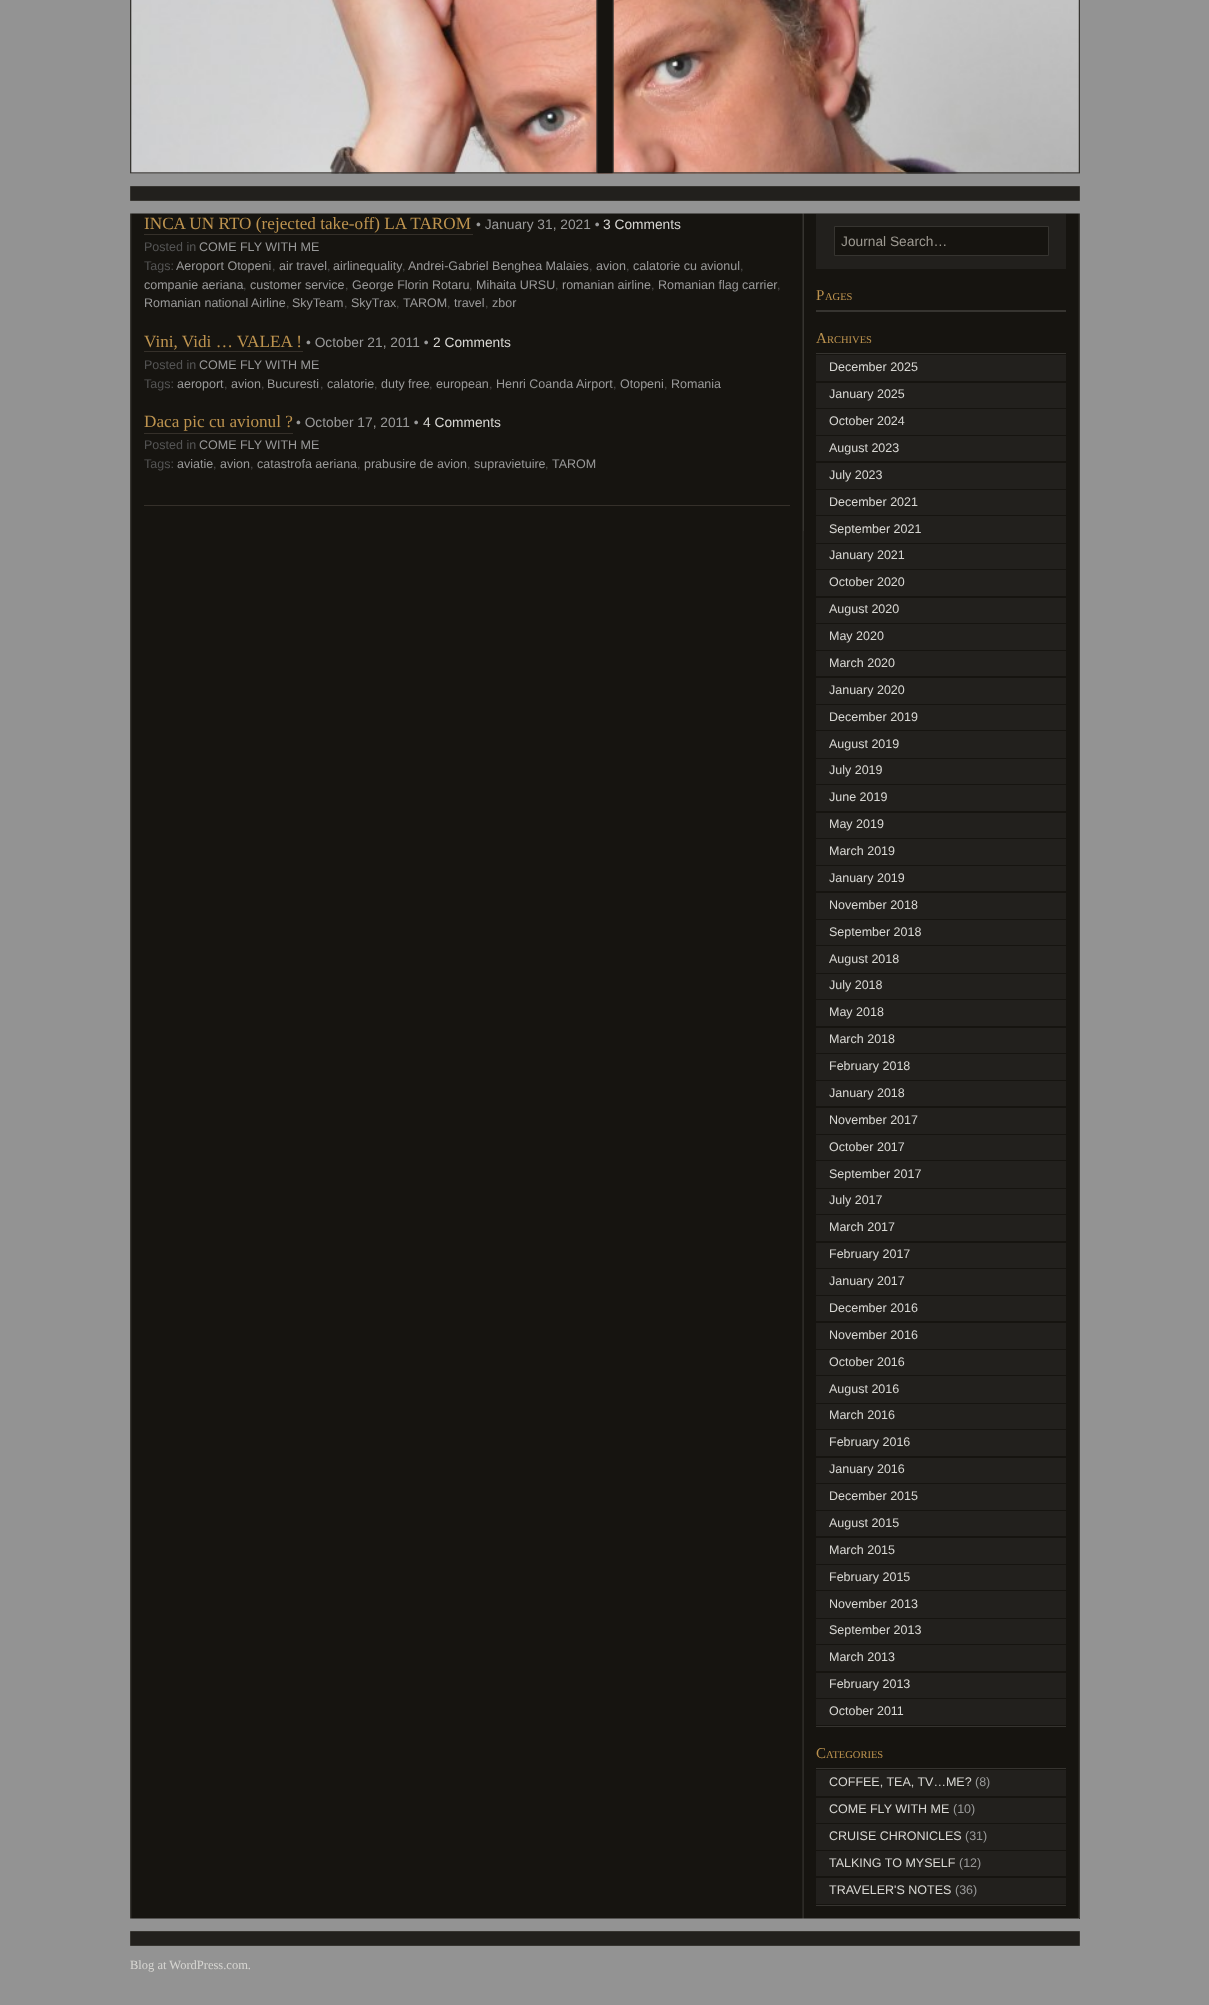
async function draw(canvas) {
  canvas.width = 1209;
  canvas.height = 2005;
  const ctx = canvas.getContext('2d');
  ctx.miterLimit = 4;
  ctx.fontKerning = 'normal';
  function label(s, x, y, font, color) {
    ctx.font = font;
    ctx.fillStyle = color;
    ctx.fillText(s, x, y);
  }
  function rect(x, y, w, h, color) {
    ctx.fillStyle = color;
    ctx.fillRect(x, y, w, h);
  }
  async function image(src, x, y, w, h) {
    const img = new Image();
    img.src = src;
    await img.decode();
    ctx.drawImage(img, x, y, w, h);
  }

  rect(0, 0, 1209, 2005, '#939393');
  await image('assets/img1.png', 130, 0, 950, 174);
  await image('assets/img2.png', 130, 0, 950, 174);
  ctx.fillStyle = '#22201d';
  ctx.beginPath();
  ctx.rect(130.5, 186.5, 949, 14);
  ctx.fill();
  ctx.strokeStyle = '#363430';
  ctx.stroke();
  await image('assets/img3.png', 130, 213, 950, 1706);
  rect(803, 214, 1, 317, '#363430');
  label('INCA UN RTO (rejected take-off) LA TAROM', 144, 229, '17.2px Liberation Serif', '#bd934f');
  rect(144, 234, 329, 1, '#35302a');
  label('• January 31, 2021 •', 476, 229, '13.75px Liberation Sans', '#999');
  label('3 Comments', 603, 229, '13.75px Liberation Sans', '#d8d7d3');
  label('Posted in', 144, 251, '12.5px Liberation Sans', '#555');
  label('COME FLY WITH ME', 199, 251, '12.5px Liberation Sans', '#999');
  label('Tags:', 144, 270, '12.5px Liberation Sans', '#555');
  label('Aeroport Otopeni', 176, 270, '12.5px Liberation Sans', '#999');
  label(',', 272, 270, '12.5px Liberation Sans', '#555');
  label('air travel', 279, 270, '12.5px Liberation Sans', '#999');
  label(',', 327, 270, '12.5px Liberation Sans', '#555');
  label('airlinequality', 333, 270, '12.5px Liberation Sans', '#999');
  label(',', 402, 270, '12.5px Liberation Sans', '#555');
  label('Andrei-Gabriel Benghea Malaies', 408, 270, '12.5px Liberation Sans', '#999');
  label(',', 589, 270, '12.5px Liberation Sans', '#555');
  label('avion', 596, 270, '12.5px Liberation Sans', '#999');
  label(',', 626, 270, '12.5px Liberation Sans', '#555');
  label('calatorie cu avionul', 633, 270, '12.5px Liberation Sans', '#999');
  label(',', 740, 270, '12.5px Liberation Sans', '#555');
  label('companie aeriana', 144, 289, '12.5px Liberation Sans', '#999');
  label(',', 243, 289, '12.5px Liberation Sans', '#555');
  label('customer service', 250, 289, '12.5px Liberation Sans', '#999');
  label(',', 345, 289, '12.5px Liberation Sans', '#555');
  label('George Florin Rotaru', 352, 289, '12.5px Liberation Sans', '#999');
  label(',', 469, 289, '12.5px Liberation Sans', '#555');
  label('Mihaita URSU', 476, 289, '12.5px Liberation Sans', '#999');
  label(',', 555, 289, '12.5px Liberation Sans', '#555');
  label('romanian airline', 562, 289, '12.5px Liberation Sans', '#999');
  label(',', 651, 289, '12.5px Liberation Sans', '#555');
  label('Romanian flag carrier', 658, 289, '12.5px Liberation Sans', '#999');
  label(',', 777, 289, '12.5px Liberation Sans', '#555');
  label('Romanian national Airline', 144, 307, '12.5px Liberation Sans', '#999');
  label(',', 286, 307, '12.5px Liberation Sans', '#555');
  label('SkyTeam', 292, 307, '12.5px Liberation Sans', '#999');
  label(',', 344, 307, '12.5px Liberation Sans', '#555');
  label('SkyTrax', 351, 307, '12.5px Liberation Sans', '#999');
  label(',', 396, 307, '12.5px Liberation Sans', '#555');
  label('TAROM', 403, 307, '12.5px Liberation Sans', '#999');
  label(',', 447, 307, '12.5px Liberation Sans', '#555');
  label('travel', 454, 307, '12.5px Liberation Sans', '#999');
  label(',', 485, 307, '12.5px Liberation Sans', '#555');
  label('zbor', 492, 307, '12.5px Liberation Sans', '#999');
  label('Vini, Vidi … VALEA !', 144, 347, '17.2px Liberation Serif', '#bd934f');
  rect(144, 351, 159, 1, '#35302a');
  label('• October 21, 2011 •', 306, 347, '13.75px Liberation Sans', '#999');
  label('2 Comments', 433, 347, '13.75px Liberation Sans', '#d8d7d3');
  label('Posted in', 144, 369, '12.5px Liberation Sans', '#555');
  label('COME FLY WITH ME', 199, 369, '12.5px Liberation Sans', '#999');
  label('Tags:', 144, 388, '12.5px Liberation Sans', '#555');
  label('aeroport', 177, 388, '12.5px Liberation Sans', '#999');
  label(',', 224, 388, '12.5px Liberation Sans', '#555');
  label('avion', 231, 388, '12.5px Liberation Sans', '#999');
  label(',', 261, 388, '12.5px Liberation Sans', '#555');
  label('Bucuresti', 267, 388, '12.5px Liberation Sans', '#999');
  label(',', 320, 388, '12.5px Liberation Sans', '#555');
  label('calatorie', 327, 388, '12.5px Liberation Sans', '#999');
  label(',', 374, 388, '12.5px Liberation Sans', '#555');
  label('duty free', 381, 388, '12.5px Liberation Sans', '#999');
  label(',', 429, 388, '12.5px Liberation Sans', '#555');
  label('european', 436, 388, '12.5px Liberation Sans', '#999');
  label(',', 489, 388, '12.5px Liberation Sans', '#555');
  label('Henri Coanda Airport', 496, 388, '12.5px Liberation Sans', '#999');
  label(',', 613, 388, '12.5px Liberation Sans', '#555');
  label('Otopeni', 620, 388, '12.5px Liberation Sans', '#999');
  label(',', 664, 388, '12.5px Liberation Sans', '#555');
  label('Romania', 671, 388, '12.5px Liberation Sans', '#999');
  label('Daca pic cu avionul ?', 144, 427, '17.2px Liberation Serif', '#bd934f');
  rect(144, 433, 149, 1, '#35302a');
  label('• October 17, 2011 •', 296, 427, '13.75px Liberation Sans', '#999');
  label('4 Comments', 423, 427, '13.75px Liberation Sans', '#d8d7d3');
  label('Posted in', 144, 449, '12.5px Liberation Sans', '#555');
  label('COME FLY WITH ME', 199, 449, '12.5px Liberation Sans', '#999');
  label('Tags:', 144, 468, '12.5px Liberation Sans', '#555');
  label('aviatie', 177, 468, '12.5px Liberation Sans', '#999');
  label(',', 213, 468, '12.5px Liberation Sans', '#555');
  label('avion', 220, 468, '12.5px Liberation Sans', '#999');
  label(',', 250, 468, '12.5px Liberation Sans', '#555');
  label('catastrofa aeriana', 257, 468, '12.5px Liberation Sans', '#999');
  label(',', 357, 468, '12.5px Liberation Sans', '#555');
  label('prabusire de avion', 364, 468, '12.5px Liberation Sans', '#999');
  label(',', 467, 468, '12.5px Liberation Sans', '#555');
  label('supravietuire', 474, 468, '12.5px Liberation Sans', '#999');
  label(',', 545, 468, '12.5px Liberation Sans', '#555');
  label('TAROM', 552, 468, '12.5px Liberation Sans', '#999');
  rect(144, 505, 646, 1, '#35302a');
  rect(1079, 1918, 1, 1, '#363430');
  rect(816, 214, 250, 55, '#22201d');
  ctx.fillStyle = '#161410';
  ctx.beginPath();
  ctx.rect(834.5, 226.5, 214, 29);
  ctx.fill();
  ctx.stroke();
  label('Journal Search…', 841, 246, '13.75px Liberation Sans', '#9c9890');
  label('P', 816, 300, '15px Liberation Serif', '#bd934f');
  label('AGES', 825, 300, '10.5px Liberation Serif', '#bd934f');
  rect(816, 310, 250, 2, '#363430');
  label('A', 816, 343, '15px Liberation Serif', '#bd934f');
  label('RCHIVES', 827, 343, '10.5px Liberation Serif', '#bd934f');
  rect(816, 353, 250, 1, '#363430');
  rect(816, 1726, 250, 1, '#363430');
  rect(816, 355, 250, 26, '#22201d');
  label('December 2025', 829, 371, '12.5px Liberation Sans', '#d8d7d3');
  rect(816, 383, 250, 25, '#22201d');
  label('January 2025', 829, 398, '12.5px Liberation Sans', '#d8d7d3');
  rect(816, 409, 250, 26, '#22201d');
  label('October 2024', 829, 425, '12.5px Liberation Sans', '#d8d7d3');
  rect(816, 436, 250, 25, '#22201d');
  label('August 2023', 829, 452, '12.5px Liberation Sans', '#d8d7d3');
  rect(816, 463, 250, 26, '#22201d');
  label('July 2023', 829, 479, '12.5px Liberation Sans', '#d8d7d3');
  rect(816, 490, 250, 25, '#22201d');
  label('December 2021', 829, 506, '12.5px Liberation Sans', '#d8d7d3');
  rect(816, 516, 250, 27, '#22201d');
  label('September 2021', 829, 533, '12.5px Liberation Sans', '#d8d7d3');
  rect(816, 544, 250, 25, '#22201d');
  label('January 2021', 829, 559, '12.5px Liberation Sans', '#d8d7d3');
  rect(816, 570, 250, 26, '#22201d');
  label('October 2020', 829, 586, '12.5px Liberation Sans', '#d8d7d3');
  rect(816, 598, 250, 25, '#22201d');
  label('August 2020', 829, 613, '12.5px Liberation Sans', '#d8d7d3');
  rect(816, 624, 250, 26, '#22201d');
  label('May 2020', 829, 640, '12.5px Liberation Sans', '#d8d7d3');
  rect(816, 651, 250, 25, '#22201d');
  label('March 2020', 829, 667, '12.5px Liberation Sans', '#d8d7d3');
  rect(816, 678, 250, 26, '#22201d');
  label('January 2020', 829, 694, '12.5px Liberation Sans', '#d8d7d3');
  rect(816, 705, 250, 25, '#22201d');
  label('December 2019', 829, 721, '12.5px Liberation Sans', '#d8d7d3');
  rect(816, 731, 250, 27, '#22201d');
  label('August 2019', 829, 748, '12.5px Liberation Sans', '#d8d7d3');
  rect(816, 759, 250, 25, '#22201d');
  label('July 2019', 829, 774, '12.5px Liberation Sans', '#d8d7d3');
  rect(816, 785, 250, 26, '#22201d');
  label('June 2019', 829, 801, '12.5px Liberation Sans', '#d8d7d3');
  rect(816, 813, 250, 25, '#22201d');
  label('May 2019', 829, 828, '12.5px Liberation Sans', '#d8d7d3');
  rect(816, 839, 250, 26, '#22201d');
  label('March 2019', 829, 855, '12.5px Liberation Sans', '#d8d7d3');
  rect(816, 866, 250, 25, '#22201d');
  label('January 2019', 829, 882, '12.5px Liberation Sans', '#d8d7d3');
  rect(816, 893, 250, 26, '#22201d');
  label('November 2018', 829, 909, '12.5px Liberation Sans', '#d8d7d3');
  rect(816, 920, 250, 25, '#22201d');
  label('September 2018', 829, 936, '12.5px Liberation Sans', '#d8d7d3');
  rect(816, 946, 250, 27, '#22201d');
  label('August 2018', 829, 963, '12.5px Liberation Sans', '#d8d7d3');
  rect(816, 974, 250, 25, '#22201d');
  label('July 2018', 829, 989, '12.5px Liberation Sans', '#d8d7d3');
  rect(816, 1000, 250, 26, '#22201d');
  label('May 2018', 829, 1016, '12.5px Liberation Sans', '#d8d7d3');
  rect(816, 1028, 250, 25, '#22201d');
  label('March 2018', 829, 1043, '12.5px Liberation Sans', '#d8d7d3');
  rect(816, 1054, 250, 26, '#22201d');
  label('February 2018', 829, 1070, '12.5px Liberation Sans', '#d8d7d3');
  rect(816, 1081, 250, 25, '#22201d');
  label('January 2018', 829, 1097, '12.5px Liberation Sans', '#d8d7d3');
  rect(816, 1108, 250, 26, '#22201d');
  label('November 2017', 829, 1124, '12.5px Liberation Sans', '#d8d7d3');
  rect(816, 1135, 250, 25, '#22201d');
  label('October 2017', 829, 1151, '12.5px Liberation Sans', '#d8d7d3');
  rect(816, 1161, 250, 27, '#22201d');
  label('September 2017', 829, 1178, '12.5px Liberation Sans', '#d8d7d3');
  rect(816, 1189, 250, 25, '#22201d');
  label('July 2017', 829, 1204, '12.5px Liberation Sans', '#d8d7d3');
  rect(816, 1215, 250, 26, '#22201d');
  label('March 2017', 829, 1231, '12.5px Liberation Sans', '#d8d7d3');
  rect(816, 1243, 250, 25, '#22201d');
  label('February 2017', 829, 1258, '12.5px Liberation Sans', '#d8d7d3');
  rect(816, 1269, 250, 26, '#22201d');
  label('January 2017', 829, 1285, '12.5px Liberation Sans', '#d8d7d3');
  rect(816, 1296, 250, 25, '#22201d');
  label('December 2016', 829, 1312, '12.5px Liberation Sans', '#d8d7d3');
  rect(816, 1323, 250, 26, '#22201d');
  label('November 2016', 829, 1339, '12.5px Liberation Sans', '#d8d7d3');
  rect(816, 1350, 250, 25, '#22201d');
  label('October 2016', 829, 1366, '12.5px Liberation Sans', '#d8d7d3');
  rect(816, 1376, 250, 27, '#22201d');
  label('August 2016', 829, 1393, '12.5px Liberation Sans', '#d8d7d3');
  rect(816, 1404, 250, 25, '#22201d');
  label('March 2016', 829, 1419, '12.5px Liberation Sans', '#d8d7d3');
  rect(816, 1430, 250, 26, '#22201d');
  label('February 2016', 829, 1446, '12.5px Liberation Sans', '#d8d7d3');
  rect(816, 1458, 250, 25, '#22201d');
  label('January 2016', 829, 1473, '12.5px Liberation Sans', '#d8d7d3');
  rect(816, 1484, 250, 26, '#22201d');
  label('December 2015', 829, 1500, '12.5px Liberation Sans', '#d8d7d3');
  rect(816, 1511, 250, 25, '#22201d');
  label('August 2015', 829, 1527, '12.5px Liberation Sans', '#d8d7d3');
  rect(816, 1538, 250, 26, '#22201d');
  label('March 2015', 829, 1554, '12.5px Liberation Sans', '#d8d7d3');
  rect(816, 1565, 250, 25, '#22201d');
  label('February 2015', 829, 1581, '12.5px Liberation Sans', '#d8d7d3');
  rect(816, 1591, 250, 27, '#22201d');
  label('November 2013', 829, 1608, '12.5px Liberation Sans', '#d8d7d3');
  rect(816, 1619, 250, 25, '#22201d');
  label('September 2013', 829, 1634, '12.5px Liberation Sans', '#d8d7d3');
  rect(816, 1645, 250, 26, '#22201d');
  label('March 2013', 829, 1661, '12.5px Liberation Sans', '#d8d7d3');
  rect(816, 1673, 250, 25, '#22201d');
  label('February 2013', 829, 1688, '12.5px Liberation Sans', '#d8d7d3');
  rect(816, 1699, 250, 26, '#22201d');
  label('October 2011', 829, 1715, '12.5px Liberation Sans', '#d8d7d3');
  label('C', 816, 1758, '15px Liberation Serif', '#bd934f');
  label('ATEGORIES', 826, 1758, '10.5px Liberation Serif', '#bd934f');
  rect(816, 1768, 250, 1, '#363430');
  rect(816, 1905, 250, 1, '#363430');
  rect(816, 1770, 250, 26, '#22201d');
  label('COFFEE, TEA, TV…ME?', 829, 1786, '12.5px Liberation Sans', '#d8d7d3');
  label('(8)', 975, 1786, '12.5px Liberation Sans', '#999');
  rect(816, 1798, 250, 25, '#22201d');
  label('COME FLY WITH ME', 829, 1813, '12.5px Liberation Sans', '#d8d7d3');
  label('(10)', 953, 1813, '12.5px Liberation Sans', '#999');
  rect(816, 1824, 250, 26, '#22201d');
  label('CRUISE CHRONICLES', 829, 1840, '12.5px Liberation Sans', '#d8d7d3');
  label('(31)', 965, 1840, '12.5px Liberation Sans', '#999');
  rect(816, 1851, 250, 25, '#22201d');
  label('TALKING TO MYSELF', 829, 1867, '12.5px Liberation Sans', '#d8d7d3');
  label('(12)', 959, 1867, '12.5px Liberation Sans', '#999');
  rect(816, 1878, 250, 26, '#22201d');
  label('TRAVELER\'S NOTES', 829, 1894, '12.5px Liberation Sans', '#d8d7d3');
  label('(36)', 955, 1894, '12.5px Liberation Sans', '#999');
  ctx.fillStyle = '#22201d';
  ctx.beginPath();
  ctx.rect(130.5, 1931.5, 949, 14);
  ctx.fill();
  ctx.stroke();
  label('Blog at WordPress.com.', 130, 1969, '12.5px Liberation Serif', '#d8d7d3');
}

draw(document.querySelector('canvas'));
